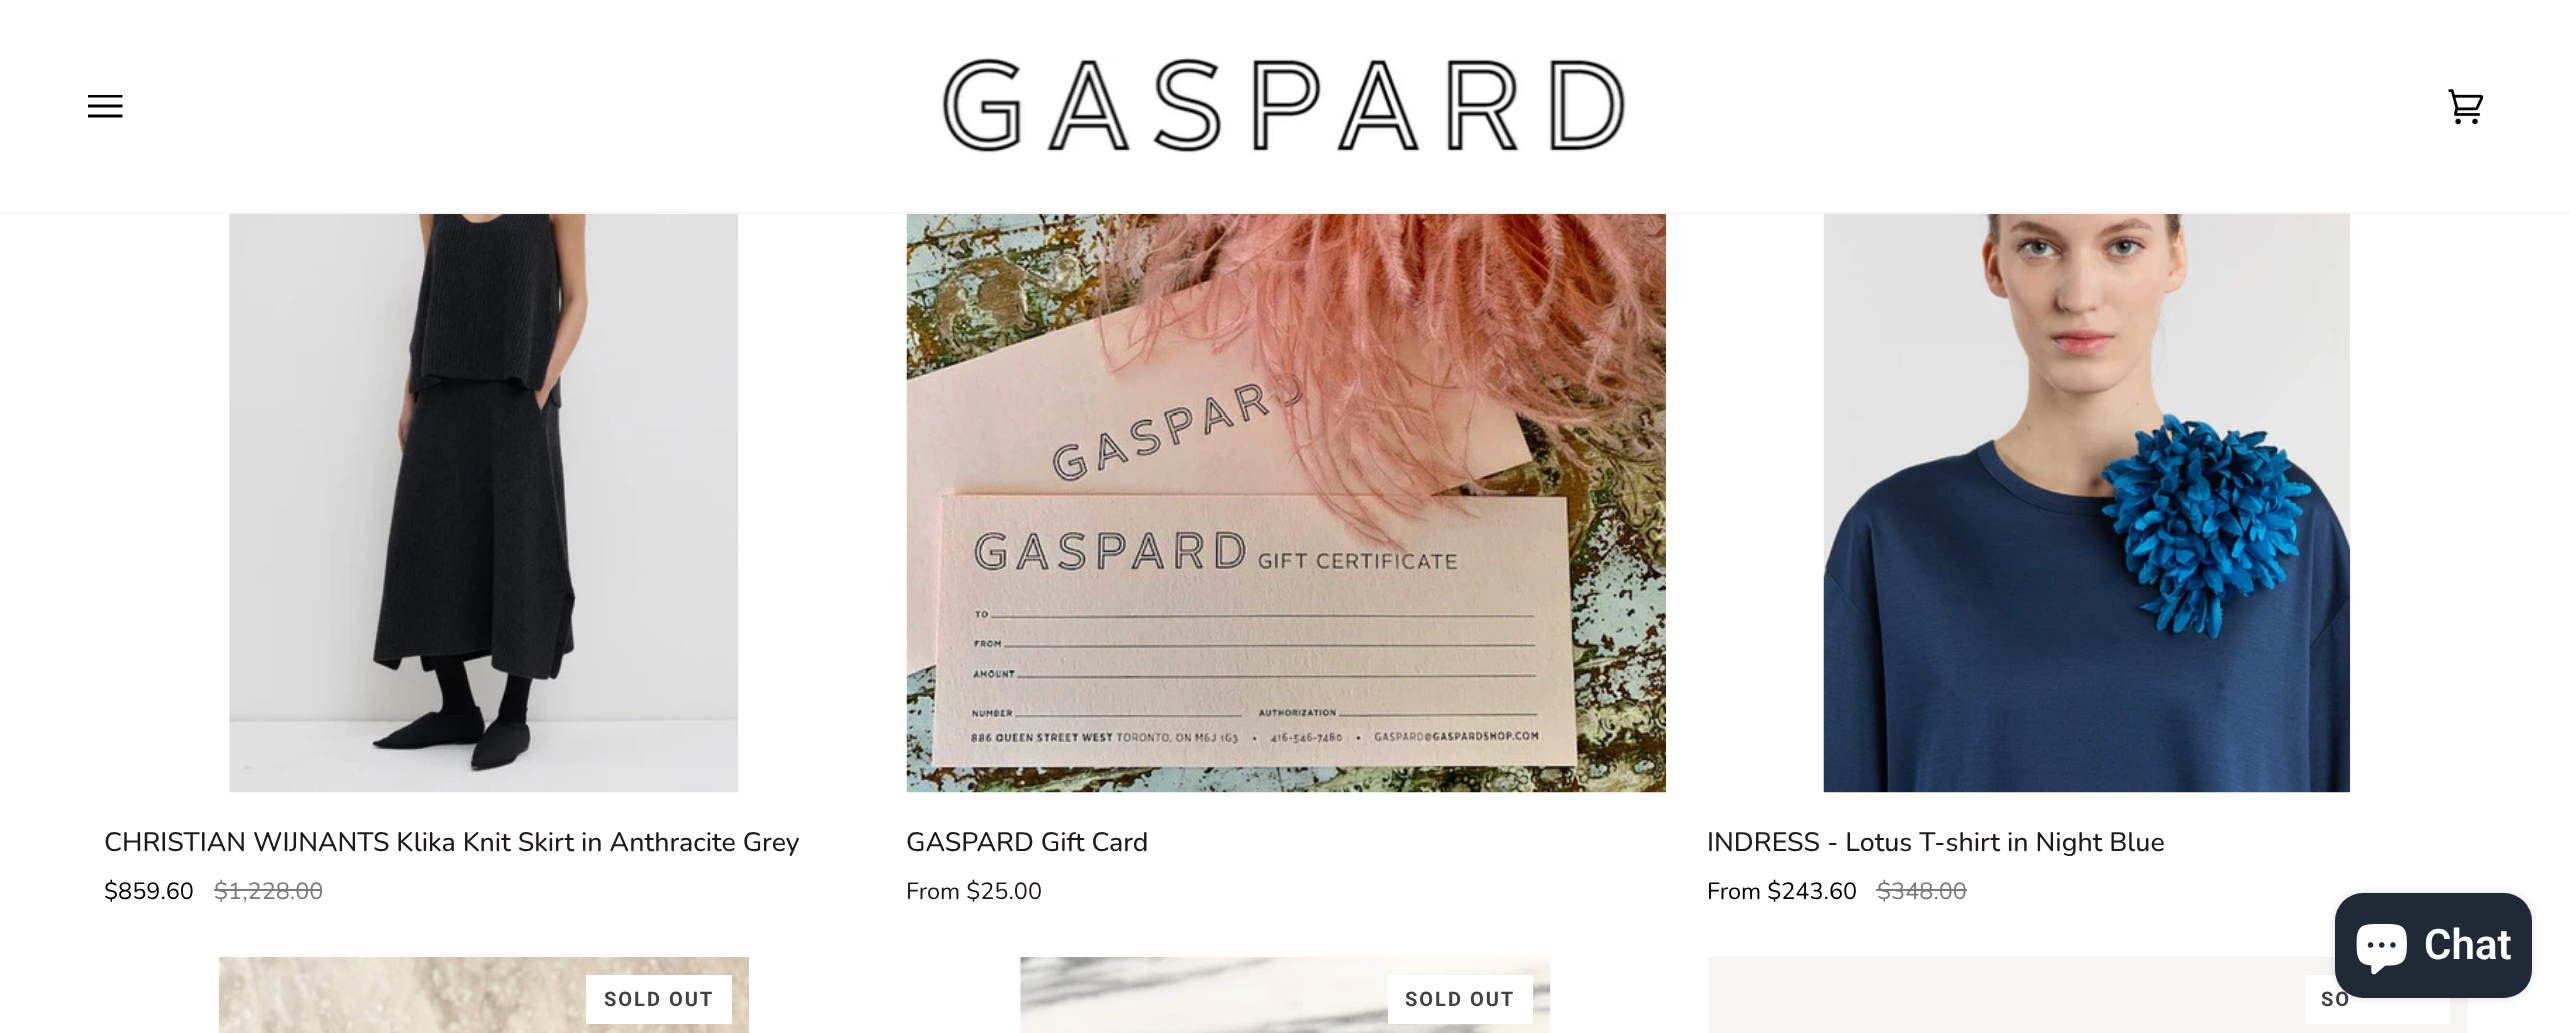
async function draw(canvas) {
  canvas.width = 2570;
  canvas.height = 1033;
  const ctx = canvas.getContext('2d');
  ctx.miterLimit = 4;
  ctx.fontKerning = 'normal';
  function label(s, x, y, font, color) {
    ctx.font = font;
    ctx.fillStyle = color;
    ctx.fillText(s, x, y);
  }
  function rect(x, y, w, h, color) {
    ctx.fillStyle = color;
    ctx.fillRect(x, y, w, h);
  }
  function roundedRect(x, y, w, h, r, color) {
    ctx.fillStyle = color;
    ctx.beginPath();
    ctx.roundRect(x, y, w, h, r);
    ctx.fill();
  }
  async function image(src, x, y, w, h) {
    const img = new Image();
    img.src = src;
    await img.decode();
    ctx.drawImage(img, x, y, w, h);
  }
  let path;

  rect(0, 0, 2570, 1033, '#fff');
  rect(0, 212, 2570, 2, '#f7f5f4');
  ctx.save();
  ctx.beginPath();
  ctx.rect(88, 81, 35, 52);
  ctx.clip();
  ctx.fillStyle = '#000';
  path = new Path2D('M87.5 95H122.5V97.5H87.5ZM87.5 104.5H122.5V107.5H87.5ZM87.5 114.5H122.5V117.5H87.5Z');
  ctx.fill(path);
  ctx.restore();
  await image('assets/img1.png', 940, 57, 687, 97);
  await image('assets/img2.png', 2448, 89, 35, 36);
  await image('assets/img3.png', 229, 214, 510, 579);
  label('CHRISTIAN WIJNANTS Klika Knit Skirt in Anthracite Grey', 104, 851, '500 26.7px Nunito', '#1f1919');
  label('$859.60', 104, 899, '23.5px Nunito', '#000');
  label('$1,228.00', 214, 899, '23.5px Nunito', '#7b7b7b');
  rect(214, 889, 108, 2, '#7b7b7b');
  await image('assets/img4.png', 906, 214, 760, 579);
  label('GASPARD Gift Card', 906, 851, '500 26.7px Nunito', '#1f1919');
  label('From $25.00', 906, 899, '23.5px Nunito', '#1f1919');
  await image('assets/img5.png', 1823, 214, 528, 579);
  label('INDRESS - Lotus T-shirt in Night Blue', 1707, 851, '500 26.7px Nunito', '#1f1919');
  label('From $243.60', 1707, 899, '23.5px Nunito', '#000');
  label('$348.00', 1877, 899, '23.5px Nunito', '#7b7b7b');
  rect(1876, 889, 91, 2, '#7b7b7b');
  await image('assets/img6.png', 218, 957, 531, 76);
  rect(586, 975, 146, 49, '#fff');
  ctx.letterSpacing = '2px';
  label('SOLD OUT', 604, 1006, 'bold 20px Roboto', '#424242');
  await image('assets/img7.png', 1020, 957, 531, 76);
  rect(1388, 975, 145, 49, '#fff');
  label('SOLD OUT', 1405, 1006, 'bold 20px Roboto', '#424242');
  rect(1708, 957, 760, 76, '#f7f5f4');
  rect(2305, 975, 145, 49, '#fff');
  label('SO', 2321, 1006, 'bold 20px Roboto', '#424242');
  ctx.fillStyle = '#00000026';
  ctx.filter = 'blur(4.5px)';
  ctx.beginPath();
  ctx.roundRect(2335, 893, 197, 105, 28);
  ctx.fill();
  ctx.filter = 'none';
  roundedRect(2335, 893, 197, 105, 28, '#202a36');
  await image('assets/img8.png', 2356, 924, 51, 51);
  ctx.letterSpacing = '0px';
  label('Chat', 2424, 959, '600 42px Roboto', '#fff');
}

draw(document.querySelector('canvas'));
